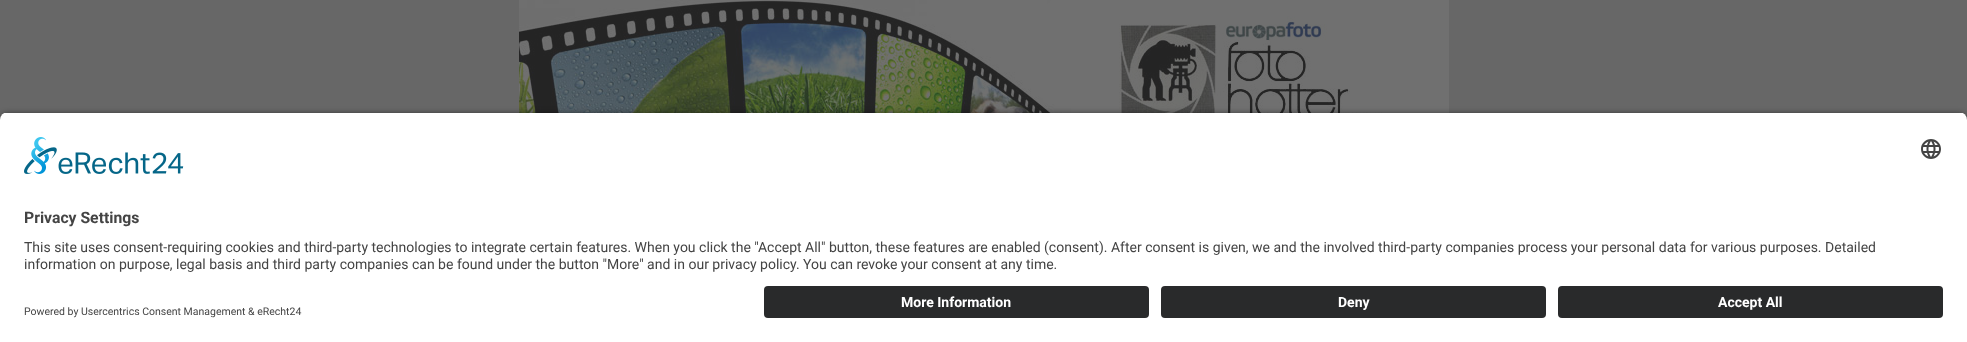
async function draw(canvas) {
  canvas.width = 1967;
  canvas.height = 342;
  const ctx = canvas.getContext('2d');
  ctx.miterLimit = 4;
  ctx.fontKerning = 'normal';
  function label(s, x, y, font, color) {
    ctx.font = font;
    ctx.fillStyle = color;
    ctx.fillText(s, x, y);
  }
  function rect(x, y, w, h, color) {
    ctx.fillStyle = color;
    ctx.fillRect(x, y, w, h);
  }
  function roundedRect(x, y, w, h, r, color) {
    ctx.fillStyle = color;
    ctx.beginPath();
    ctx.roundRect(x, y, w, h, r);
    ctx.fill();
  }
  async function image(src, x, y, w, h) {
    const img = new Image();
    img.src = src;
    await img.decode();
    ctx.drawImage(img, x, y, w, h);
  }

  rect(0, 0, 1967, 342, '#676767');
  await image('assets/img1.png', 519, 0, 930, 113);
  ctx.fillStyle = '#000000cc';
  ctx.filter = 'blur(3.5px)';
  ctx.beginPath();
  ctx.roundRect(0, 115, 1967, 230, 8);
  ctx.fill();
  ctx.filter = 'none';
  ctx.save();
  ctx.beginPath();
  ctx.roundRect(0, 112, 1967, 166, [8, 8, 0, 0]);
  ctx.clip();
  rect(0, 113, 1967, 165, '#fff');
  ctx.restore();
  await image('assets/img2.png', 24, 137, 160, 37);
  await image('assets/img3.png', 1921, 139, 20, 20);
  label('Privacy Settings', 24, 223, 'bold 15.75px Roboto', '#444');
  label('This site uses consent-requiring cookies and third-party technologies to integrate certain features. When you click the "Accept All" button, these features are enabled (consent). After consent is given, we and the involved third-party companies process your personal data for various purposes. Detailed', 24, 252, '14px Roboto', '#444');
  label('information on purpose, legal basis and third party companies can be found under the button "More" and in our privacy policy. You can revoke your consent at any time.', 24, 269, '14px Roboto', '#444');
  rect(0, 278, 1967, 64, '#fff');
  roundedRect(764, 286, 385, 32, 4, '#292a2b');
  label('More Information', 901, 307, 'bold 14px Roboto', '#fff');
  roundedRect(1161, 286, 385, 32, 4, '#292a2b');
  label('Deny', 1338, 307, 'bold 14px Roboto', '#fff');
  roundedRect(1558, 286, 385, 32, 4, '#292a2b');
  label('Accept All', 1718, 307, 'bold 14px Roboto', '#fff');
  label('Powered by Usercentrics Consent Management & eRecht24', 24, 315, '10.5px Roboto', '#444');
}

draw(document.querySelector('canvas'));
